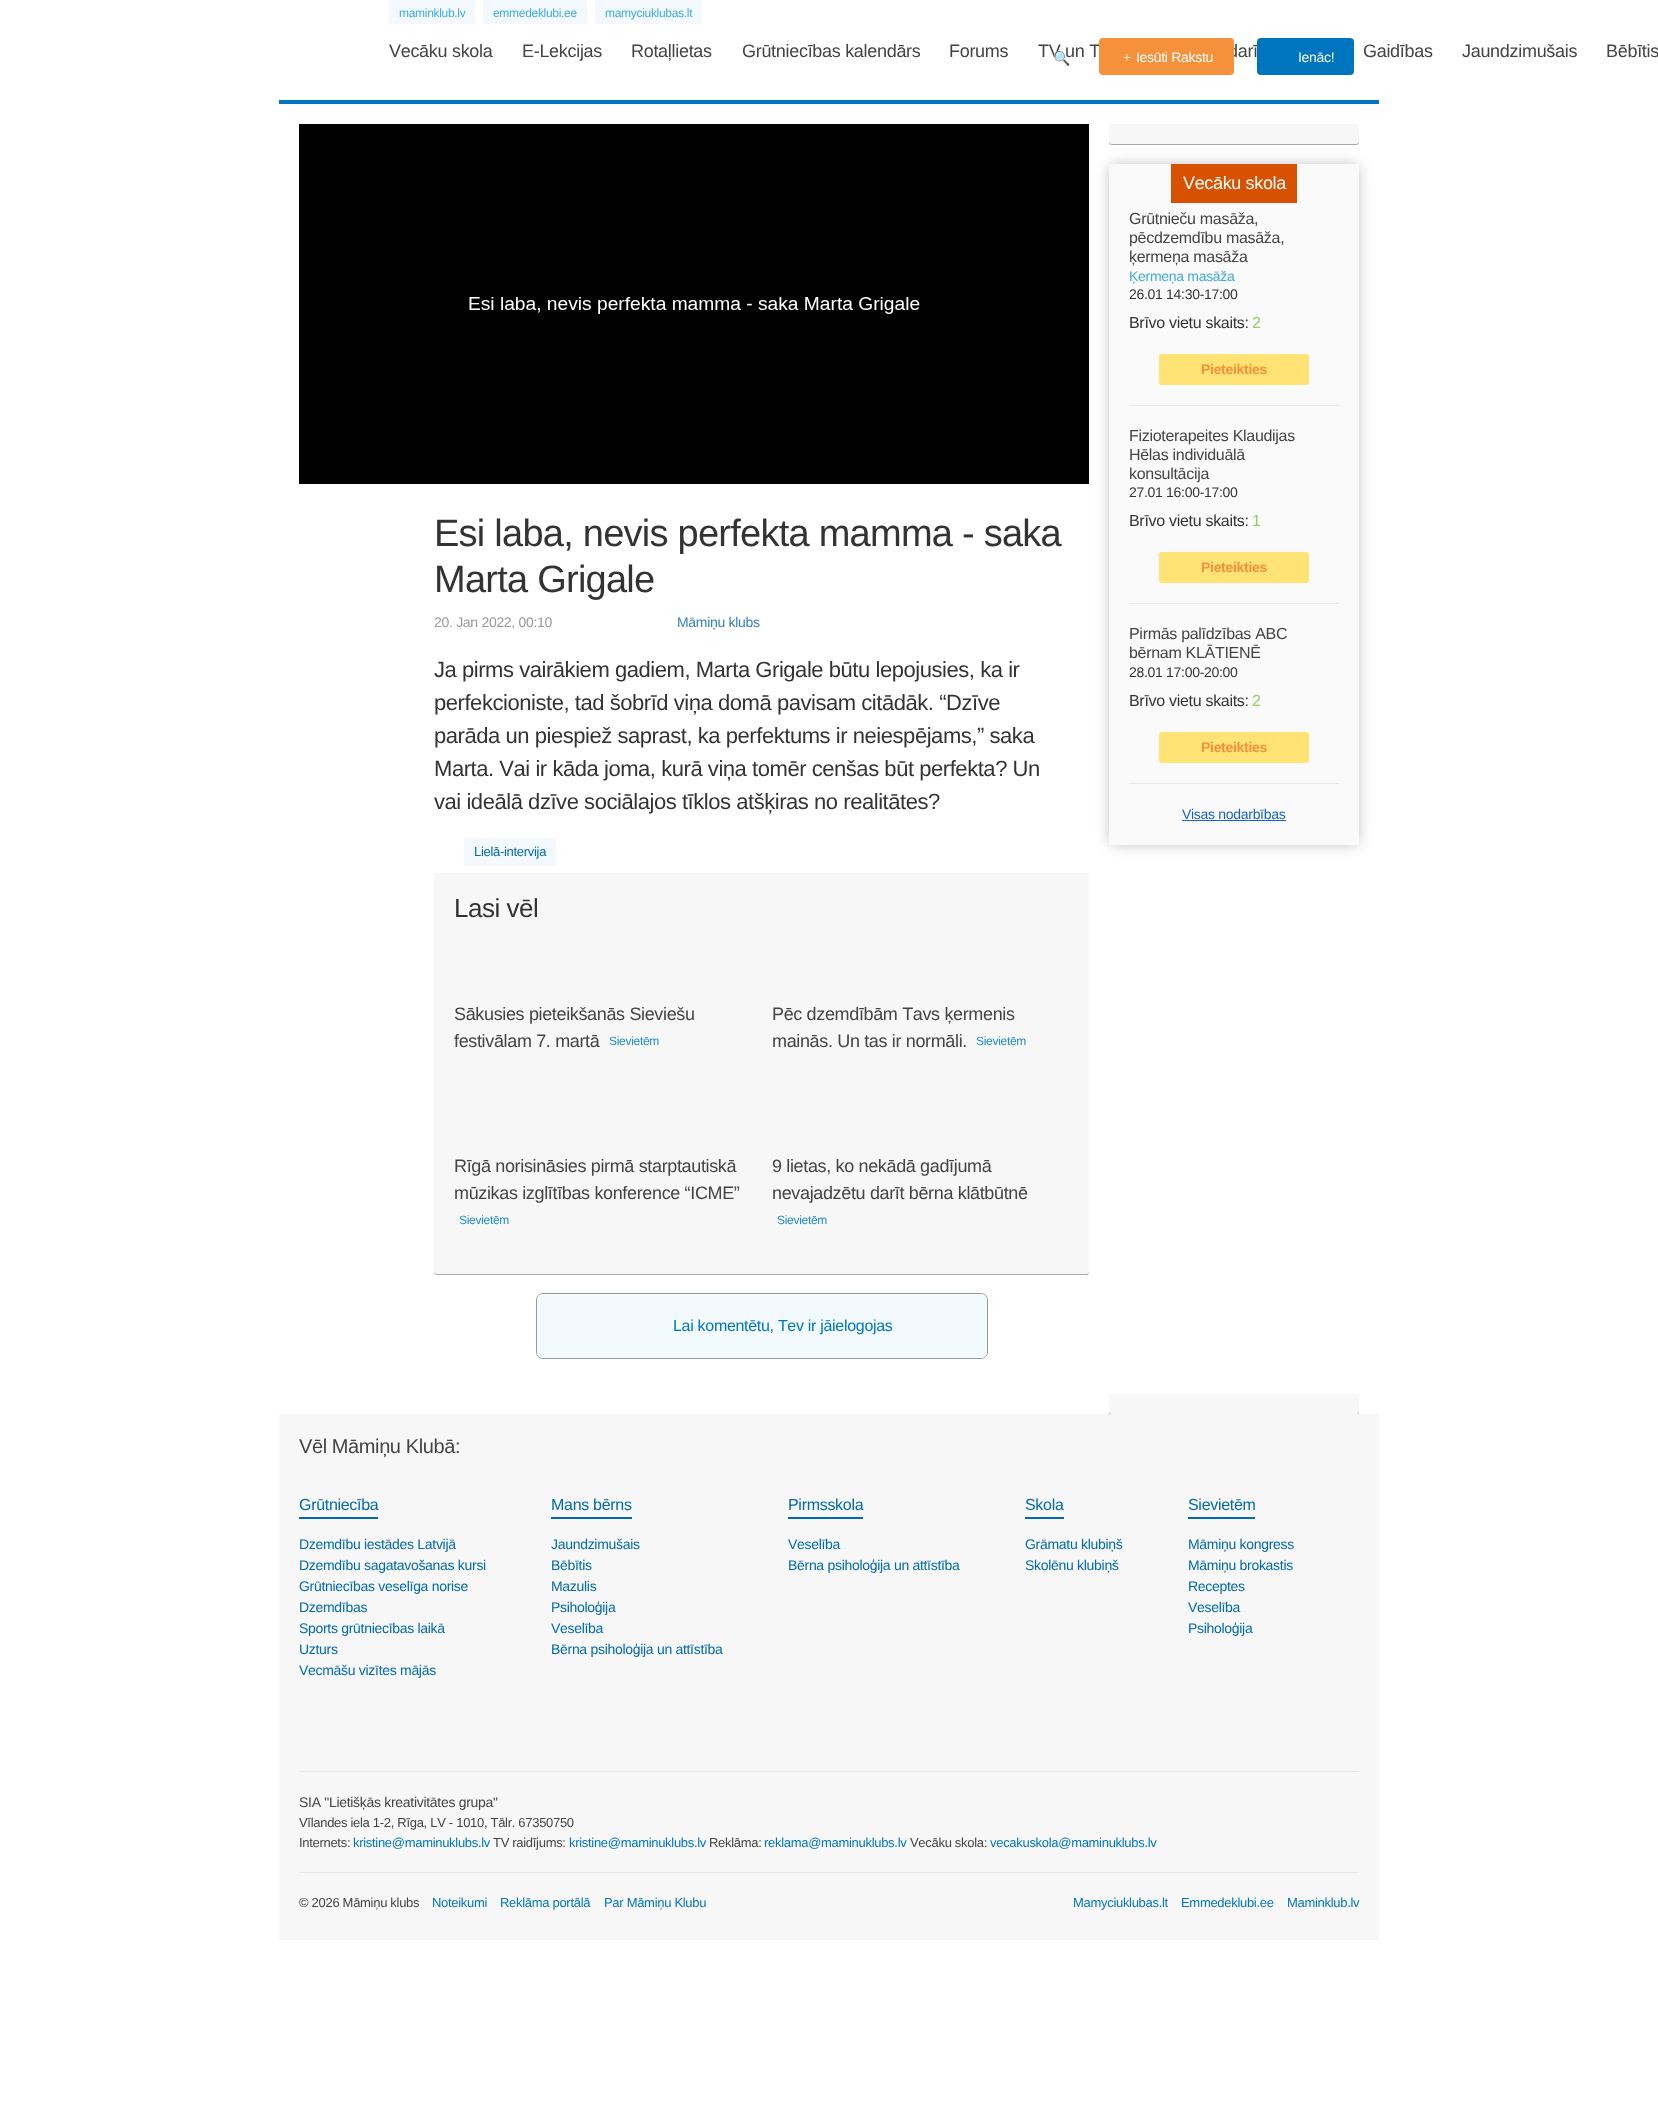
async function draw(canvas) {
  canvas.width = 1658;
  canvas.height = 2123;
  const ctx = canvas.getContext('2d');
  ctx.miterLimit = 4;
  ctx.fontKerning = 'none';
  function label(s, x, y, font, color) {
    ctx.font = font;
    ctx.fillStyle = color;
    ctx.fillText(s, x, y);
  }
  function rect(x, y, w, h, color) {
    ctx.fillStyle = color;
    ctx.fillRect(x, y, w, h);
  }
  function roundedRect(x, y, w, h, r, color) {
    ctx.fillStyle = color;
    ctx.beginPath();
    ctx.roundRect(x, y, w, h, r);
    ctx.fill();
  }
  async function image(src, x, y, w, h) {
    const img = new Image();
    img.src = src;
    await img.decode();
    ctx.drawImage(img, x, y, w, h);
  }

  rect(0, 0, 1658, 2123, '#fff');
  rect(279, 100, 1100, 4, '#0075bf');
  ctx.fillStyle = '#f3f9ff';
  ctx.beginPath();
  ctx.roundRect(389, 0, 86, 24, [0, 0, 2, 2]);
  ctx.fill();
  ctx.letterSpacing = '-0.3px';
  label('maminklub.lv', 399, 17, '12px Liberation Sans', '#3faae0');
  ctx.fillStyle = '#f3f9ff';
  ctx.beginPath();
  ctx.roundRect(483, 0, 104, 24, [0, 0, 2, 2]);
  ctx.fill();
  label('emmedeklubi.ee', 493, 17, '12px Liberation Sans', '#3faae0');
  ctx.fillStyle = '#f3f9ff';
  ctx.beginPath();
  ctx.roundRect(595, 0, 107, 24, [0, 0, 2, 2]);
  ctx.fill();
  label('mamyciuklubas.lt', 605, 17, '12px Liberation Sans', '#3faae0');
  label('Vecāku skola', 389, 57, '18px Liberation Sans', '#444');
  label('E-Lekcijas', 522, 57, '18px Liberation Sans', '#444');
  label('Rotaļlietas', 631, 57, '18px Liberation Sans', '#444');
  label('Grūtniecības kalendārs', 742, 57, '18px Liberation Sans', '#444');
  label('Forums', 949, 57, '18px Liberation Sans', '#444');
  label('TV un T', 1038, 57, '18px Liberation Sans', '#444');
  label('darī', 1228, 57, '18px Liberation Sans', '#444');
  label('Gaidības', 1363, 57, '18px Liberation Sans', '#444');
  label('Jaundzimušais', 1462, 57, '18px Liberation Sans', '#444');
  label('Bēbītis', 1606, 57, '18px Liberation Sans', '#444');
  label('🔍', 1053, 63, '14px Noto Color Emoji', '#444');
  roundedRect(1099, 38, 135, 37, 4, '#f6913b');
  label('+', 1123, 62, '14px Liberation Serif', '#fff');
  label('Iesūti Rakstu', 1136, 62, '14px Liberation Sans', '#fff');
  roundedRect(1257, 38, 97, 37, 4, '#0075bf');
  label('Ienāc!', 1298, 62, '14px Liberation Sans', '#fff');
  await image('assets/img1.png', 299, 124, 790, 360);
  ctx.fillStyle = '#aaa';
  ctx.filter = 'blur(0.5px)';
  ctx.beginPath();
  ctx.roundRect(1109, 125, 250, 20, 3);
  ctx.fill();
  ctx.filter = 'none';
  roundedRect(1109, 124, 250, 20, 3, '#f7f7f7');
  ctx.fillStyle = '#abababe3';
  ctx.filter = 'blur(7.5px)';
  ctx.beginPath();
  ctx.rect(1111, 166, 246, 677);
  ctx.fill();
  ctx.filter = 'none';
  rect(1109, 164, 250, 681, '#fafafa');
  rect(1171, 164, 126, 39, '#d75100');
  ctx.letterSpacing = '-0.35px';
  label('Vecāku skola', 1183, 189, '18px Liberation Sans', '#fff');
  rect(1129, 405, 210, 1, '#e7e7e7');
  ctx.letterSpacing = '-0.3px';
  label('Grūtnieču masāža,', 1129, 224, '16px Liberation Sans', '#444');
  label('pēcdzemdību masāža,', 1129, 243, '16px Liberation Sans', '#444');
  label('ķermeņa masāža', 1129, 262, '16px Liberation Sans', '#444');
  label('Ķermeņa masāža', 1129, 281, '14px Liberation Sans', '#3faae0');
  label('26.01 14:30-17:00', 1129, 299, '14px Liberation Sans', '#333');
  label('Brīvo vietu skaits:', 1129, 328, '16px Liberation Sans', '#333');
  label('2', 1252, 328, '16px Liberation Sans', '#99cb67');
  roundedRect(1159, 354, 150, 31, 3, '#ffe374');
  label('Pieteikties', 1201, 374, 'bold 14px Liberation Sans', '#f6913b');
  rect(1129, 603, 210, 1, '#e7e7e7');
  label('Fizioterapeites Klaudijas', 1129, 441, '16px Liberation Sans', '#444');
  label('Hēlas individuālā', 1129, 460, '16px Liberation Sans', '#444');
  label('konsultācija', 1129, 479, '16px Liberation Sans', '#444');
  label('27.01 16:00-17:00', 1129, 497, '14px Liberation Sans', '#333');
  label('Brīvo vietu skaits:', 1129, 526, '16px Liberation Sans', '#333');
  label('1', 1252, 526, '16px Liberation Sans', '#99cb67');
  roundedRect(1159, 552, 150, 31, 3, '#ffe374');
  label('Pieteikties', 1201, 572, 'bold 14px Liberation Sans', '#f6913b');
  rect(1129, 783, 210, 1, '#e7e7e7');
  label('Pirmās palīdzības ABC', 1129, 639, '16px Liberation Sans', '#444');
  label('bērnam KLĀTIENĒ', 1129, 658, '16px Liberation Sans', '#444');
  label('28.01 17:00-20:00', 1129, 677, '14px Liberation Sans', '#333');
  label('Brīvo vietu skaits:', 1129, 706, '16px Liberation Sans', '#333');
  label('2', 1252, 706, '16px Liberation Sans', '#99cb67');
  roundedRect(1159, 732, 150, 31, 3, '#ffe374');
  label('Pieteikties', 1201, 752, 'bold 14px Liberation Sans', '#f6913b');
  label('Visas nodarbības', 1182, 819, '14px Liberation Sans', '#1565c0');
  rect(1182, 820, 104, 1, '#1565c0');
  ctx.letterSpacing = '-0.75px';
  label('Esi laba, nevis perfekta mamma - saka', 434, 546, '38px Liberation Sans', '#333');
  label('Marta Grigale', 434, 592, '38px Liberation Sans', '#333');
  ctx.letterSpacing = '-0.3px';
  label('20. Jan 2022, 00:10', 434, 627, '14px Liberation Sans', '#999');
  label('Māmiņu klubs', 677, 627, '14px Liberation Sans', '#3382bc');
  ctx.letterSpacing = '-0.45px';
  label('Ja pirms vairākiem gadiem, Marta Grigale būtu lepojusies, ka ir', 434, 677, '22px Liberation Sans', '#333');
  label('perfekcioniste, tad šobrīd viņa domā pavisam citādāk. “Dzīve', 434, 710, '22px Liberation Sans', '#333');
  label('parāda un piespiež saprast, ka perfektums ir neiespējams,” saka', 434, 743, '22px Liberation Sans', '#333');
  label('Marta. Vai ir kāda joma, kurā viņa tomēr cenšas būt perfekta? Un', 434, 776, '22px Liberation Sans', '#333');
  label('vai ideālā dzīve sociālajos tīklos atšķiras no realitātes?', 434, 809, '22px Liberation Sans', '#333');
  roundedRect(464, 838, 92, 28, 2, '#f3f9ff');
  ctx.letterSpacing = '-0.3px';
  label('Lielā-intervija', 474, 856, '13px Liberation Sans', '#006aaa');
  rect(434, 873, 655, 381, '#f7f7f7');
  ctx.letterSpacing = '-0.5px';
  label('Lasi vēl', 454, 917, '26px Liberation Sans', '#333');
  ctx.letterSpacing = '-0.35px';
  label('Sākusies pieteikšanās Sieviešu', 454, 1020, '18px Liberation Sans', '#444');
  label('festivālam 7. martā', 454, 1047, '18px Liberation Sans', '#444');
  ctx.letterSpacing = '-0.3px';
  label('Sievietēm', 609, 1045, '12px Liberation Sans', '#1f8bcc');
  ctx.letterSpacing = '-0.35px';
  label('Pēc dzemdībām Tavs ķermenis', 772, 1020, '18px Liberation Sans', '#444');
  label('mainās. Un tas ir normāli.', 772, 1047, '18px Liberation Sans', '#444');
  ctx.letterSpacing = '-0.3px';
  label('Sievietēm', 976, 1045, '12px Liberation Sans', '#1f8bcc');
  ctx.letterSpacing = '-0.35px';
  label('Rīgā norisināsies pirmā starptautiskā', 454, 1172, '18px Liberation Sans', '#444');
  label('mūzikas izglītības konference “ICME”', 454, 1199, '18px Liberation Sans', '#444');
  ctx.letterSpacing = '-0.3px';
  label('Sievietēm', 459, 1224, '12px Liberation Sans', '#1f8bcc');
  ctx.letterSpacing = '-0.35px';
  label('9 lietas, ko nekādā gadījumā', 772, 1172, '18px Liberation Sans', '#444');
  label('nevajadzētu darīt bērna klātbūtnē', 772, 1199, '18px Liberation Sans', '#444');
  ctx.letterSpacing = '-0.3px';
  label('Sievietēm', 777, 1224, '12px Liberation Sans', '#1f8bcc');
  ctx.fillStyle = '#aaa';
  ctx.filter = 'blur(0.5px)';
  ctx.beginPath();
  ctx.roundRect(434, 1255, 655, 20, 3);
  ctx.fill();
  ctx.filter = 'none';
  roundedRect(434, 1254, 655, 20, 3, '#f7f7f7');
  ctx.beginPath();
  ctx.roundRect(536.5, 1293.5, 451, 65, 6.5);
  ctx.strokeStyle = '#999';
  ctx.stroke();
  roundedRect(537, 1294, 450, 64, 6, '#f2fafe');
  label('Lai komentētu, Tev ir jāielogojas', 673, 1331, '16px Liberation Sans', '#0075bf');
  ctx.fillStyle = '#aaa';
  ctx.filter = 'blur(0.5px)';
  ctx.beginPath();
  ctx.roundRect(1109, 1395, 250, 20, 3);
  ctx.fill();
  ctx.filter = 'none';
  roundedRect(1109, 1394, 250, 20, 3, '#f7f7f7');
  rect(279, 1414, 1100, 526, '#f7f7f7');
  ctx.letterSpacing = '-0.4px';
  label('Vēl Māmiņu Klubā:', 299, 1453, '20px Liberation Sans', '#444');
  rect(299, 1517, 79, 2, '#006aaa');
  ctx.letterSpacing = '-0.3px';
  label('Grūtniecība', 299, 1510, '16px Liberation Sans', '#006aaa');
  label('Dzemdību iestādes Latvijā', 299, 1549, '14px Liberation Sans', '#006aaa');
  label('Dzemdību sagatavošanas kursi', 299, 1570, '14px Liberation Sans', '#006aaa');
  label('Grūtniecības veselīga norise', 299, 1591, '14px Liberation Sans', '#006aaa');
  label('Dzemdības', 299, 1612, '14px Liberation Sans', '#006aaa');
  label('Sports grūtniecības laikā', 299, 1633, '14px Liberation Sans', '#006aaa');
  label('Uzturs', 299, 1654, '14px Liberation Sans', '#006aaa');
  label('Vecmāšu vizītes mājās', 299, 1675, '14px Liberation Sans', '#006aaa');
  rect(551, 1517, 81, 2, '#006aaa');
  label('Mans bērns', 551, 1510, '16px Liberation Sans', '#006aaa');
  label('Jaundzimušais', 551, 1549, '14px Liberation Sans', '#006aaa');
  label('Bēbītis', 551, 1570, '14px Liberation Sans', '#006aaa');
  label('Mazulis', 551, 1591, '14px Liberation Sans', '#006aaa');
  label('Psiholoģija', 551, 1612, '14px Liberation Sans', '#006aaa');
  label('Veselība', 551, 1633, '14px Liberation Sans', '#006aaa');
  label('Bērna psiholoģija un attīstība', 551, 1654, '14px Liberation Sans', '#006aaa');
  rect(788, 1517, 75, 2, '#006aaa');
  label('Pirmsskola', 788, 1510, '16px Liberation Sans', '#006aaa');
  label('Veselība', 788, 1549, '14px Liberation Sans', '#006aaa');
  label('Bērna psiholoģija un attīstība', 788, 1570, '14px Liberation Sans', '#006aaa');
  rect(1025, 1517, 39, 2, '#006aaa');
  label('Skola', 1025, 1510, '16px Liberation Sans', '#006aaa');
  label('Grāmatu klubiņš', 1025, 1549, '14px Liberation Sans', '#006aaa');
  label('Skolēnu klubiņš', 1025, 1570, '14px Liberation Sans', '#006aaa');
  rect(1188, 1517, 67, 2, '#006aaa');
  label('Sievietēm', 1188, 1510, '16px Liberation Sans', '#006aaa');
  label('Māmiņu kongress', 1188, 1549, '14px Liberation Sans', '#006aaa');
  label('Māmiņu brokastis', 1188, 1570, '14px Liberation Sans', '#006aaa');
  label('Receptes', 1188, 1591, '14px Liberation Sans', '#006aaa');
  label('Veselība', 1188, 1612, '14px Liberation Sans', '#006aaa');
  label('Psiholoģija', 1188, 1633, '14px Liberation Sans', '#006aaa');
  rect(299, 1771, 1060, 1, '#e7e7e7');
  rect(299, 1872, 1060, 1, '#e7e7e7');
  label('SIA "Lietišķās kreativitātes grupa"', 299, 1807, '14px Liberation Sans', '#444');
  label('Vīlandes iela 1-2, Rīga, LV - 1010, Tālr. 67350750', 299, 1827, '13px Liberation Sans', '#444');
  label('Internets:', 299, 1847, '13px Liberation Sans', '#444');
  label('kristine@maminuklubs.lv', 353, 1847, '13px Liberation Sans', '#0075bf');
  label('TV raidījums:', 493, 1847, '13px Liberation Sans', '#444');
  label('kristine@maminuklubs.lv', 569, 1847, '13px Liberation Sans', '#0075bf');
  label('Reklāma:', 709, 1847, '13px Liberation Sans', '#444');
  label('reklama@maminuklubs.lv', 764, 1847, '13px Liberation Sans', '#0075bf');
  label('Vecāku skola:', 910, 1847, '13px Liberation Sans', '#444');
  label('vecakuskola@maminuklubs.lv', 990, 1847, '13px Liberation Sans', '#0075bf');
  label('© 2026 Māmiņu klubs', 299, 1907, '13px Liberation Sans', '#444');
  label('Noteikumi', 432, 1907, '13px Liberation Sans', '#0075bf');
  label('Reklāma portālā', 500, 1907, '13px Liberation Sans', '#0075bf');
  label('Par Māmiņu Klubu', 604, 1907, '13px Liberation Sans', '#0075bf');
  label('Mamyciuklubas.lt', 1073, 1907, '13px Liberation Sans', '#0075bf');
  label('Emmedeklubi.ee', 1181, 1907, '13px Liberation Sans', '#0075bf');
  label('Maminklub.lv', 1287, 1907, '13px Liberation Sans', '#0075bf');
}

draw(document.querySelector('canvas'));
